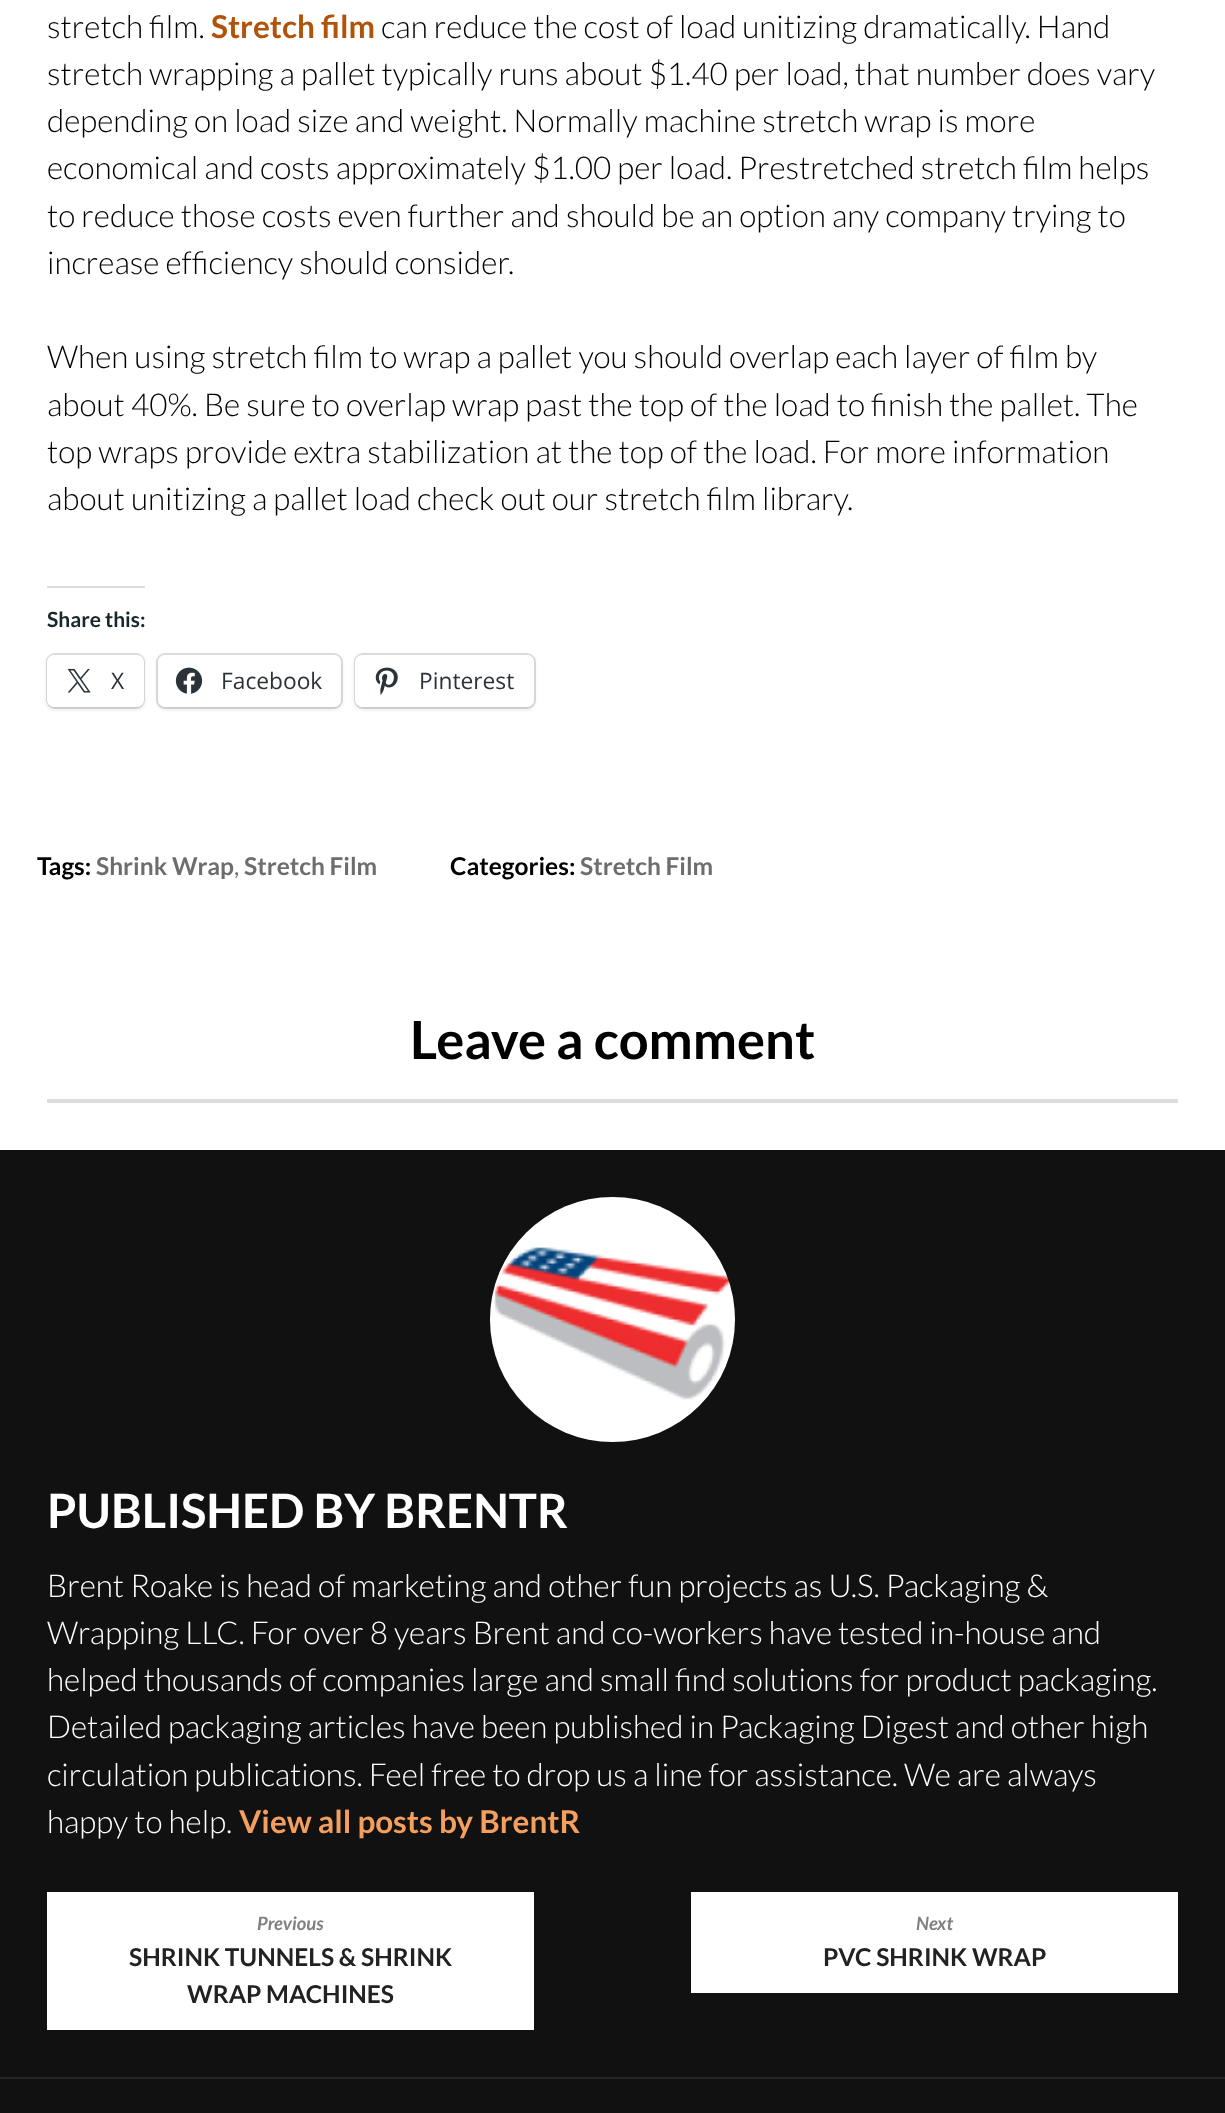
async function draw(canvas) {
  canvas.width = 1225;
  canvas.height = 2113;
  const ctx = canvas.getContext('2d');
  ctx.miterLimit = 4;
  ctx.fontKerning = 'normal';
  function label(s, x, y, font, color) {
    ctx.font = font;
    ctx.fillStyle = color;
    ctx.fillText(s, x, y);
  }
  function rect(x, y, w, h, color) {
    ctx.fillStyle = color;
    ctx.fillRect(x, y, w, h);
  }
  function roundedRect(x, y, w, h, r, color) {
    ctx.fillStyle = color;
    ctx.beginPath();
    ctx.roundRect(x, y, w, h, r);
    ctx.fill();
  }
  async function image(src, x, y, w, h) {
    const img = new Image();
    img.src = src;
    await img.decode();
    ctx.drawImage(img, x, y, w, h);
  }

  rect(0, 0, 1225, 2113, '#fff');
  label('stretch film.', 47, 38, '300 31.5px Lato', '#000');
  label('Stretch film', 211, 38, 'bold 31.5px Lato', '#b2530a');
  label('can reduce the cost of load unitizing dramatically. Hand', 381, 38, '300 31.5px Lato', '#000');
  label('stretch wrapping a pallet typically runs about $1.40 per load, that number does vary', 47, 85, '300 31.5px Lato', '#000');
  label('depending on load size and weight. Normally machine stretch wrap is more', 47, 132, '300 31.5px Lato', '#000');
  label('economical and costs approximately $1.00 per load. Prestretched stretch film helps', 47, 179, '300 31.5px Lato', '#000');
  label('to reduce those costs even further and should be an option any company trying to', 47, 227, '300 31.5px Lato', '#000');
  label('increase efficiency should consider.', 47, 274, '300 31.5px Lato', '#000');
  label('When using stretch film to wrap a pallet you should overlap each layer of film by', 47, 368, '300 31.5px Lato', '#000');
  label('about 40%. Be sure to overlap wrap past the top of the load to finish the pallet. The', 47, 416, '300 31.5px Lato', '#000');
  label('top wraps provide extra stabilization at the top of the load. For more information', 47, 463, '300 31.5px Lato', '#000');
  label('about unitizing a pallet load check out our stretch film library.', 47, 510, '300 31.5px Lato', '#000');
  rect(47, 586, 98, 2, '#dcdcde');
  label('Share this:', 47, 627, 'bold 21px Lato', '#18282a');
  ctx.beginPath();
  ctx.roundRect(47, 654, 97, 54, 8);
  ctx.strokeStyle = '#e0e0e0';
  ctx.lineWidth = 2;
  ctx.stroke();
  ctx.fillStyle = '#0000001f';
  ctx.filter = 'blur(2px)';
  ctx.beginPath();
  ctx.roundRect(47, 656, 97, 53, 7);
  ctx.fill();
  ctx.filter = 'none';
  roundedRect(47, 655, 97, 52, 7, '#fff');
  await image('assets/img1.png', 67, 668, 24, 25);
  label('X', 111, 689, '22.75px Open Sans', '#2c3338');
  ctx.beginPath();
  ctx.roundRect(157, 654, 185, 54, 8);
  ctx.stroke();
  ctx.fillStyle = '#0000001f';
  ctx.filter = 'blur(2px)';
  ctx.beginPath();
  ctx.roundRect(158, 656, 183, 53, 7);
  ctx.fill();
  ctx.filter = 'none';
  roundedRect(158, 655, 183, 52, 7, '#fff');
  await image('assets/img2.png', 175, 667, 28, 27);
  label('Facebook', 221, 689, '22.75px Open Sans', '#2c3338');
  ctx.beginPath();
  ctx.roundRect(355, 654, 180, 54, 8);
  ctx.stroke();
  ctx.fillStyle = '#0000001f';
  ctx.filter = 'blur(2px)';
  ctx.beginPath();
  ctx.roundRect(355, 656, 179, 53, 7);
  ctx.fill();
  ctx.filter = 'none';
  roundedRect(355, 655, 179, 52, 7, '#fff');
  await image('assets/img3.png', 375, 667, 23, 28);
  label('Pinterest', 419, 689, '22.75px Open Sans', '#2c3338');
  label('Tags:', 37, 875, 'bold 24.5px Lato', '#000');
  label('Shrink Wrap', 96, 875, 'bold 24.5px Lato', '#6d6d6d');
  label(',', 234, 875, '24.5px Lato', '#767676');
  label('Stretch Film', 244, 875, 'bold 24.5px Lato', '#6d6d6d');
  label('Categories:', 450, 875, 'bold 24.5px Lato', '#000');
  label('Stretch Film', 580, 875, 'bold 24.5px Lato', '#6d6d6d');
  label('Leave a comment', 410, 1059, 'bold 52.5px Lato', '#000');
  rect(47, 1099, 1131, 4, '#dcdcde');
  rect(0, 1150, 1225, 927, '#111');
  rect(0, 2077, 1225, 2, '#252525');
  await image('assets/img4.png', 490, 1197, 245, 245);
  label('PUBLISHED BY BRENTR', 47, 1528, 'bold 47.25px Lato', '#fff');
  label('Brent Roake is head of marketing and other fun projects as U.S. Packaging &', 47, 1597, '300 31.5px Lato', '#fff');
  label('Wrapping LLC. For over 8 years Brent and co-workers have tested in-house and', 47, 1644, '300 31.5px Lato', '#fff');
  label('helped thousands of companies large and small find solutions for product packaging.', 47, 1691, '300 31.5px Lato', '#fff');
  label('Detailed packaging articles have been published in Packaging Digest and other high', 47, 1738, '300 31.5px Lato', '#fff');
  label('circulation publications. Feel free to drop us a line for assistance. We are always', 47, 1786, '300 31.5px Lato', '#fff');
  label('happy to help.', 47, 1833, '300 31.5px Lato', '#fff');
  label('View all posts by BrentR', 239, 1833, 'bold 31.5px Lato', '#f49f5e');
  rect(47, 1892, 487, 138, '#fff');
  label('Previous', 257, 1930, 'italic bold 18.5px Lato', '#808080');
  label('SHRINK TUNNELS & SHRINK', 129, 1966, 'bold 24.5px Lato', '#222');
  label('WRAP MACHINES', 187, 2003, 'bold 24.5px Lato', '#222');
  rect(691, 1892, 487, 101, '#fff');
  label('Next', 916, 1930, 'italic bold 18.5px Lato', '#808080');
  label('PVC SHRINK WRAP', 823, 1966, 'bold 24.5px Lato', '#222');
  rect(0, 2079, 1225, 34, '#111');
}

draw(document.querySelector('canvas'));
